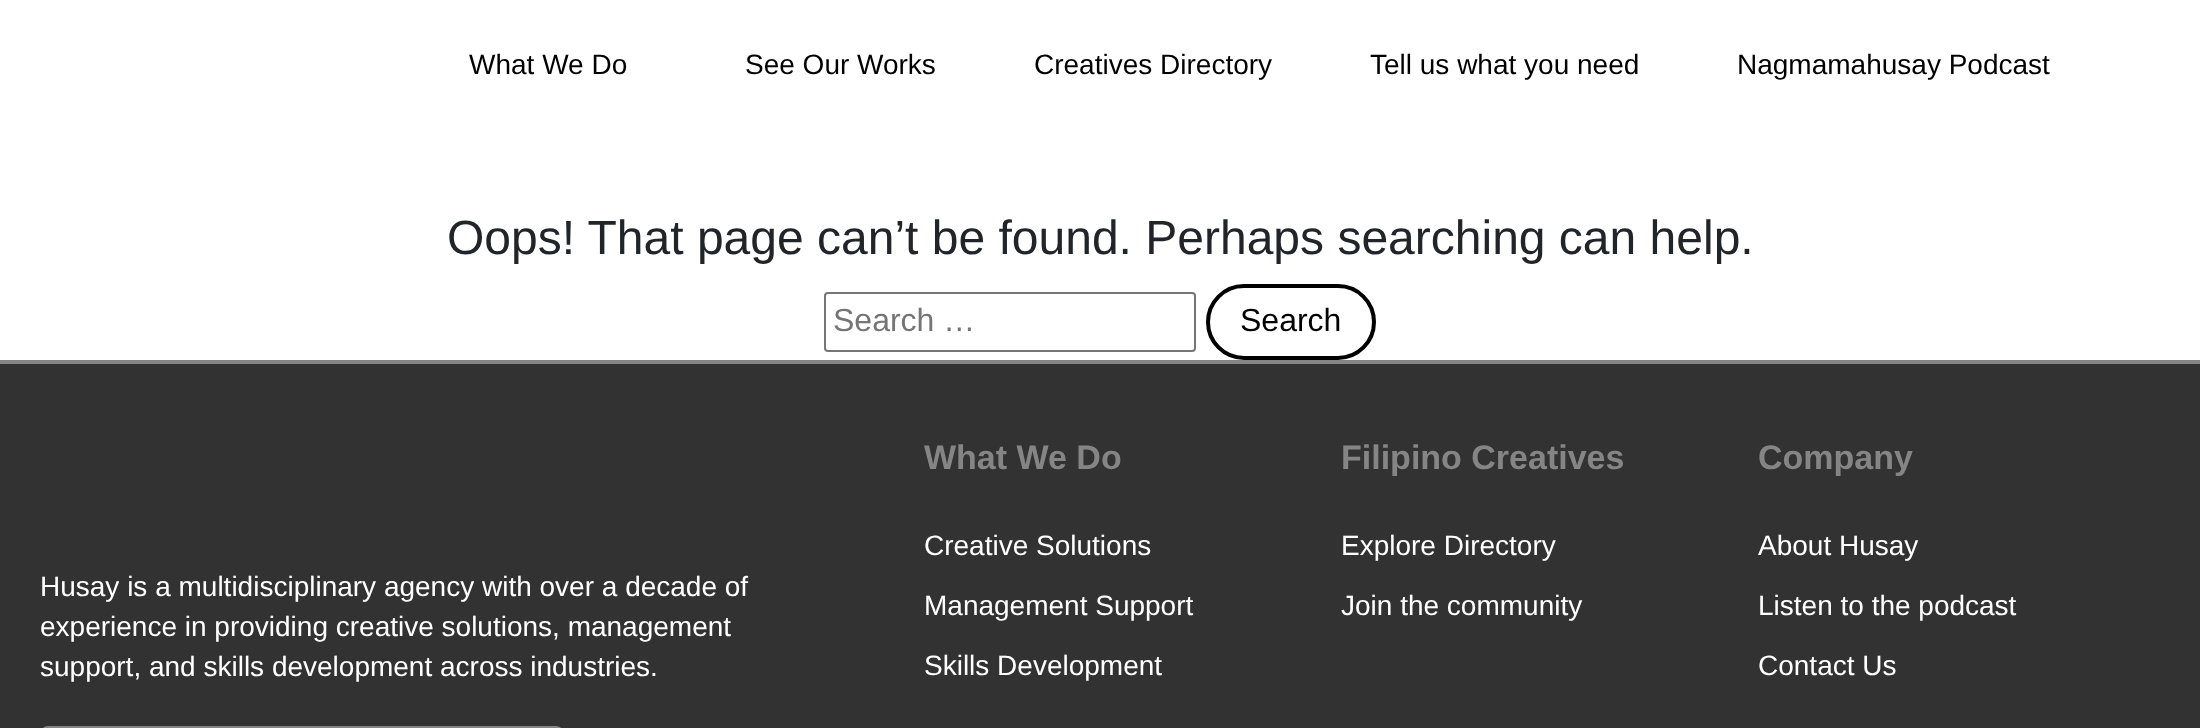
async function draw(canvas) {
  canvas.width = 2200;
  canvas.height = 728;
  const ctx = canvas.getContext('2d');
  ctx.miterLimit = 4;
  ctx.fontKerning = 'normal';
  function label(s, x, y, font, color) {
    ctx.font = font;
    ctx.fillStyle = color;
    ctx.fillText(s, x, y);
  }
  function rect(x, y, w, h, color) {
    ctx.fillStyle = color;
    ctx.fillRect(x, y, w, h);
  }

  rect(0, 0, 2200, 728, '#fff');
  label('What We Do', 469, 74, '28px Liberation Sans', '#000');
  label('See Our Works', 745, 74, '28px Liberation Sans', '#000');
  label('Creatives Directory', 1034, 74, '28px Liberation Sans', '#000');
  label('Tell us what you need', 1370, 74, '28px Liberation Sans', '#000');
  label('Nagmamahusay Podcast', 1737, 74, '28px Liberation Sans', '#000');
  label('Oops! That page can’t be found. Perhaps searching can help.', 447, 254, '48px Liberation Sans', '#212529');
  ctx.beginPath();
  ctx.roundRect(825, 293, 370, 58, 3);
  ctx.strokeStyle = '#767676';
  ctx.lineWidth = 2;
  ctx.stroke();
  label('Search …', 833, 331, '32px Liberation Sans', '#757575');
  ctx.beginPath();
  ctx.roundRect(1208, 286, 166, 72, 36);
  ctx.strokeStyle = '#000';
  ctx.lineWidth = 4;
  ctx.stroke();
  label('Search', 1240, 331, '32px Liberation Sans', '#000');
  rect(0, 364, 2200, 364, '#323232');
  rect(0, 360, 2200, 4, '#858585');
  label('Husay is a multidisciplinary agency with over a decade of', 40, 596, '28px Liberation Sans', '#fff');
  label('experience in providing creative solutions, management', 40, 636, '28px Liberation Sans', '#fff');
  label('support, and skills development across industries.', 40, 676, '28px Liberation Sans', '#fff');
  ctx.beginPath();
  ctx.roundRect(42, 728, 520, 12, 8);
  ctx.strokeStyle = '#858585';
  ctx.stroke();
  label('What We Do', 924, 469, 'bold 34px Liberation Sans', '#858585');
  label('Creative Solutions', 924, 555, '28px Liberation Sans', '#fff');
  label('Management Support', 924, 615, '28px Liberation Sans', '#fff');
  label('Skills Development', 924, 675, '28px Liberation Sans', '#fff');
  label('Filipino Creatives', 1341, 469, 'bold 34px Liberation Sans', '#858585');
  label('Explore Directory', 1341, 555, '28px Liberation Sans', '#fff');
  label('Join the community', 1341, 615, '28px Liberation Sans', '#fff');
  label('Company', 1758, 469, 'bold 34px Liberation Sans', '#858585');
  label('About Husay', 1758, 555, '28px Liberation Sans', '#fff');
  label('Listen to the podcast', 1758, 615, '28px Liberation Sans', '#fff');
  label('Contact Us', 1758, 675, '28px Liberation Sans', '#fff');
}

draw(document.querySelector('canvas'));
